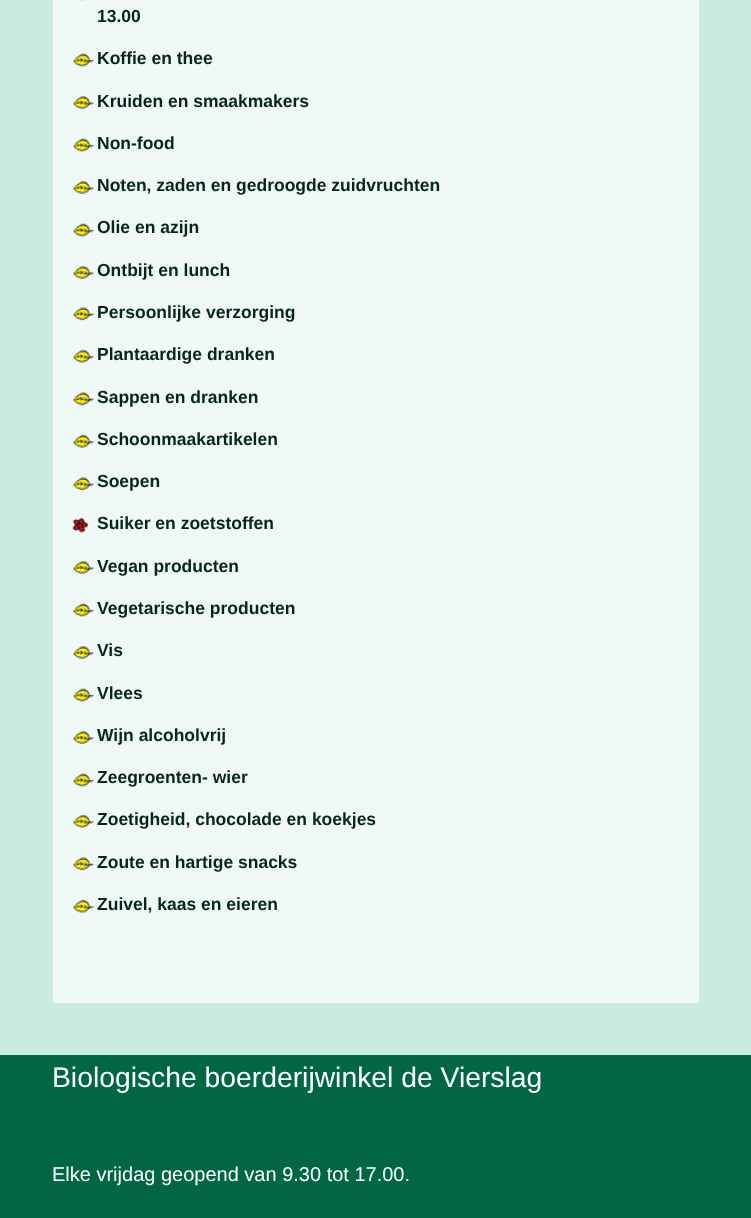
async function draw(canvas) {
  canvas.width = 751;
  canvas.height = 1218;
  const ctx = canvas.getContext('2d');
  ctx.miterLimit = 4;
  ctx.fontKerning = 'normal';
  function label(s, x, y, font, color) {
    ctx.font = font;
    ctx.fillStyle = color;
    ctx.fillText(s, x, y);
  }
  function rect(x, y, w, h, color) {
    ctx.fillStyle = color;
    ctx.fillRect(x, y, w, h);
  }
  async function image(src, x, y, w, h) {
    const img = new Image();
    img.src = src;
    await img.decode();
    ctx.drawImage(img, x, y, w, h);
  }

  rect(0, 0, 751, 1218, '#ccebe0');
  rect(53, 0, 646, 1003, '#f1f9f6');
  await image('assets/img1.png', 79, 0, 6, 1);
  label('13.00', 97, 22, 'bold 17.5px Liberation Sans', '#052716');
  await image('assets/img2.png', 73, 53, 21, 14);
  label('Koffie en thee', 97, 64, 'bold 17.5px Liberation Sans', '#052716');
  await image('assets/img3.png', 73, 96, 21, 13);
  label('Kruiden en smaakmakers', 97, 107, 'bold 17.5px Liberation Sans', '#052716');
  await image('assets/img2.png', 73, 138, 21, 14);
  label('Non-food', 97, 149, 'bold 17.5px Liberation Sans', '#052716');
  await image('assets/img3.png', 73, 181, 21, 13);
  label('Noten, zaden en gedroogde zuidvruchten', 97, 191, 'bold 17.5px Liberation Sans', '#052716');
  await image('assets/img2.png', 73, 223, 21, 14);
  label('Olie en azijn', 97, 233, 'bold 17.5px Liberation Sans', '#052716');
  await image('assets/img3.png', 73, 266, 21, 13);
  label('Ontbijt en lunch', 97, 276, 'bold 17.5px Liberation Sans', '#052716');
  await image('assets/img4.png', 73, 307, 21, 14);
  label('Persoonlijke verzorging', 97, 318, 'bold 17.5px Liberation Sans', '#052716');
  await image('assets/img5.png', 73, 349, 21, 14);
  label('Plantaardige dranken', 97, 360, 'bold 17.5px Liberation Sans', '#052716');
  await image('assets/img4.png', 73, 392, 21, 14);
  label('Sappen en dranken', 97, 403, 'bold 17.5px Liberation Sans', '#052716');
  await image('assets/img6.png', 73, 434, 21, 14);
  label('Schoonmaakartikelen', 97, 445, 'bold 17.5px Liberation Sans', '#052716');
  await image('assets/img4.png', 73, 477, 21, 14);
  label('Soepen', 97, 487, 'bold 17.5px Liberation Sans', '#052716');
  await image('assets/img7.png', 72, 517, 17, 16);
  label('Suiker en zoetstoffen', 97, 529, 'bold 17.5px Liberation Sans', '#052716');
  await image('assets/img3.png', 73, 561, 21, 13);
  label('Vegan producten', 97, 572, 'bold 17.5px Liberation Sans', '#052716');
  await image('assets/img2.png', 73, 603, 21, 14);
  label('Vegetarische producten', 97, 614, 'bold 17.5px Liberation Sans', '#052716');
  await image('assets/img3.png', 73, 646, 21, 13);
  label('Vis', 97, 656, 'bold 17.5px Liberation Sans', '#052716');
  await image('assets/img2.png', 73, 688, 21, 14);
  label('Vlees', 97, 699, 'bold 17.5px Liberation Sans', '#052716');
  await image('assets/img8.png', 73, 731, 21, 13);
  label('Wijn alcoholvrij', 97, 741, 'bold 17.5px Liberation Sans', '#052716');
  await image('assets/img2.png', 73, 773, 21, 14);
  label('Zeegroenten- wier', 97, 783, 'bold 17.5px Liberation Sans', '#052716');
  await image('assets/img5.png', 73, 814, 21, 14);
  label('Zoetigheid, chocolade en koekjes', 97, 825, 'bold 17.5px Liberation Sans', '#052716');
  await image('assets/img4.png', 73, 857, 21, 14);
  label('Zoute en hartige snacks', 97, 868, 'bold 17.5px Liberation Sans', '#052716');
  await image('assets/img5.png', 73, 899, 21, 14);
  label('Zuivel, kaas en eieren', 97, 910, 'bold 17.5px Liberation Sans', '#052716');
  rect(0, 1055, 751, 163, '#064');
  rect(53, 1129, 646, 1, '#006141');
  label('Biologische boerderijwinkel de Vierslag', 52, 1087, '28.3px Liberation Sans', '#fff');
  label('Elke vrijdag geopend van 9.30 tot 17.00.', 52, 1181, '20px Liberation Sans', '#fff');
}

draw(document.querySelector('canvas'));
